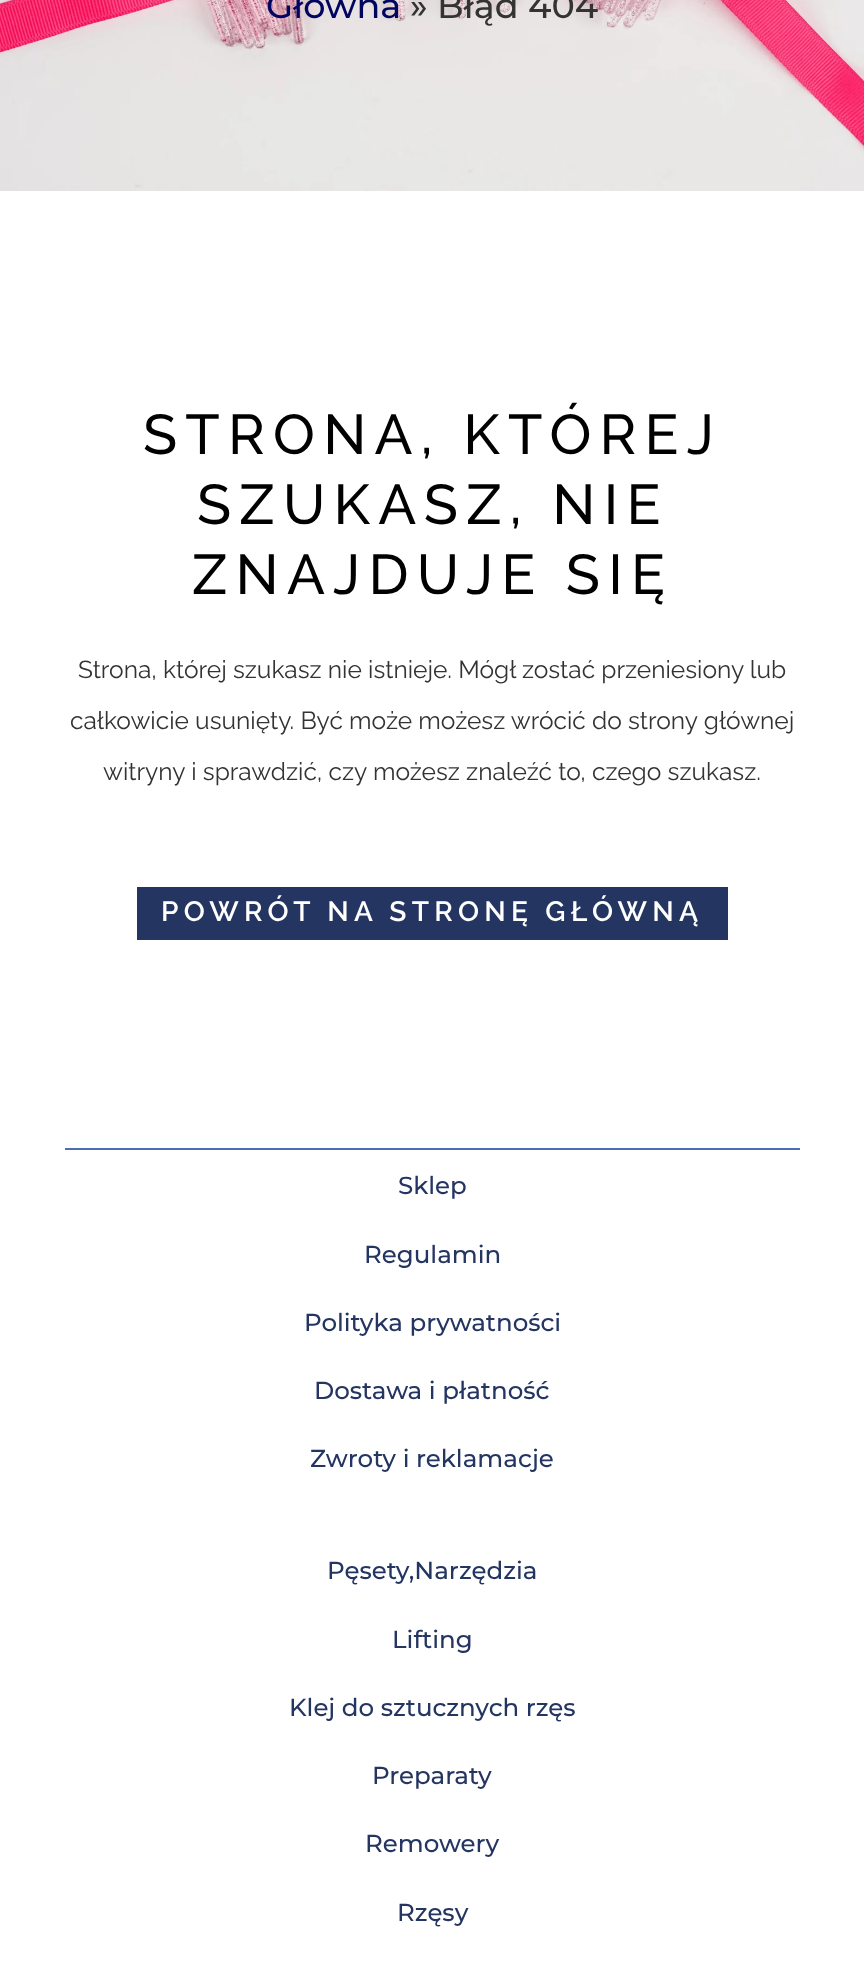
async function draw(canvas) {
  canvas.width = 864;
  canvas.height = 1983;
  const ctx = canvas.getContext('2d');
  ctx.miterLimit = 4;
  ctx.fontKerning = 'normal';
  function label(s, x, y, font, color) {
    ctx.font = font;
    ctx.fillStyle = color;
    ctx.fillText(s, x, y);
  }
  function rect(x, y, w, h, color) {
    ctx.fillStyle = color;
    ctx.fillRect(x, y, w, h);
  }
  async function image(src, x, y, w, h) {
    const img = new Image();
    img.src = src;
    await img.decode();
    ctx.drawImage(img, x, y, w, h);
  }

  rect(0, 0, 864, 1983, '#fff');
  await image('assets/img1.png', 0, 0, 864, 191);
  label('Główna', 266, 18, '500 35px Montserrat', '#000660');
  label('» Błąd 404', 410, 18, '500 35px Montserrat', '#333');
  ctx.letterSpacing = '8.25px';
  label('STRONA, KTÓREJ', 143, 454, '500 56px Raleway', '#000');
  label('SZUKASZ, NIE', 197, 524, '500 56px Raleway', '#000');
  label('ZNAJDUJE SIĘ', 192, 594, '500 56px Raleway', '#000');
  ctx.letterSpacing = '0px';
  label('Strona, której szukasz nie istnieje. Mógł zostać przeniesiony lub', 78, 678, '24.5px Raleway', '#333');
  label('całkowicie usunięty. Być może możesz wrócić do strony głównej', 70, 729, '24.5px Raleway', '#333');
  label('witryny i sprawdzić, czy możesz znaleźć to, czego szukasz.', 103, 780, '24.5px Raleway', '#333');
  rect(137, 887, 591, 53, '#243562');
  ctx.letterSpacing = '5.25px';
  label('POWRÓT NA STRONĘ GŁÓWNĄ', 161, 921, '600 28px Raleway', '#fff');
  rect(65, 1148, 735, 2, '#4f6db5');
  ctx.letterSpacing = '0px';
  label('Sklep', 398, 1194, '500 24.5px Montserrat', '#243562');
  label('Regulamin', 364, 1263, '500 24.5px Montserrat', '#243562');
  label('Polityka prywatności', 304, 1331, '500 24.5px Montserrat', '#243562');
  label('Dostawa i płatność', 314, 1399, '500 24.5px Montserrat', '#243562');
  label('Zwroty i reklamacje', 310, 1467, '500 24.5px Montserrat', '#243562');
  label('Pęsety,Narzędzia', 327, 1579, '500 24.5px Montserrat', '#243562');
  label('Lifting', 392, 1648, '500 24.5px Montserrat', '#243562');
  label('Klej do sztucznych rzęs', 289, 1716, '500 24.5px Montserrat', '#243562');
  label('Preparaty', 372, 1784, '500 24.5px Montserrat', '#243562');
  label('Remowery', 365, 1852, '500 24.5px Montserrat', '#243562');
  label('Rzęsy', 397, 1921, '500 24.5px Montserrat', '#243562');
}

draw(document.querySelector('canvas'));
